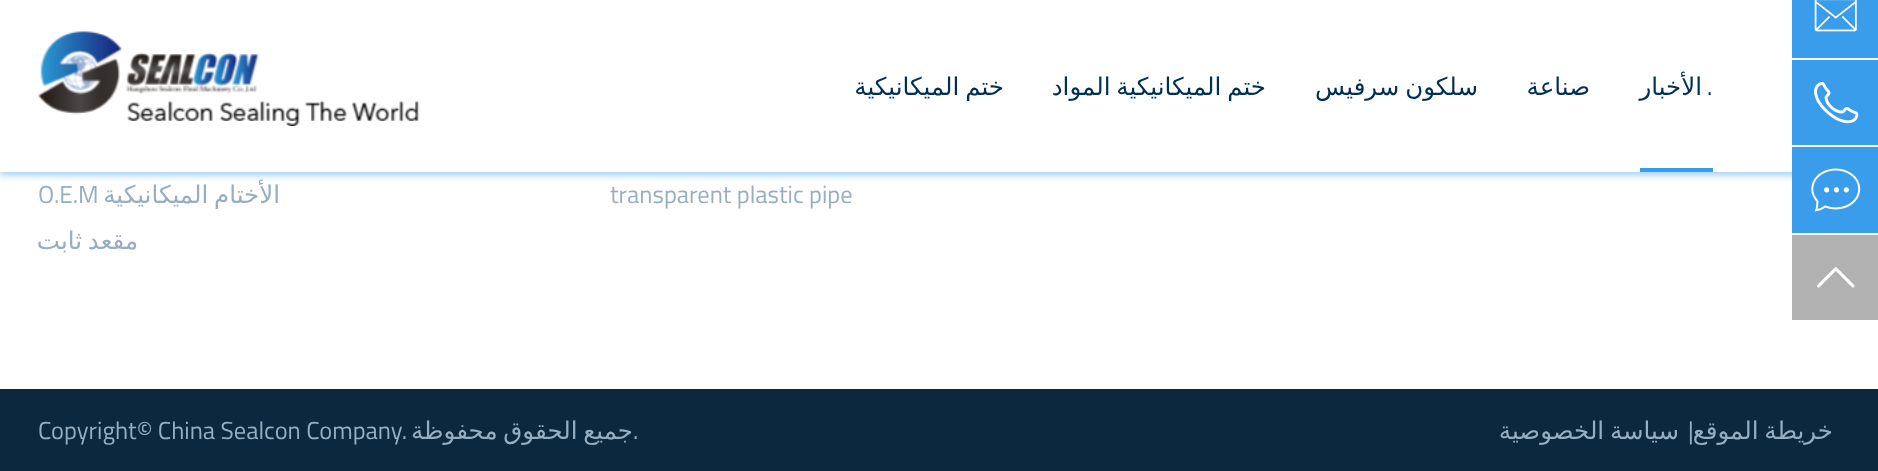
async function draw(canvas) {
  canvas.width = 1878;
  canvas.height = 471;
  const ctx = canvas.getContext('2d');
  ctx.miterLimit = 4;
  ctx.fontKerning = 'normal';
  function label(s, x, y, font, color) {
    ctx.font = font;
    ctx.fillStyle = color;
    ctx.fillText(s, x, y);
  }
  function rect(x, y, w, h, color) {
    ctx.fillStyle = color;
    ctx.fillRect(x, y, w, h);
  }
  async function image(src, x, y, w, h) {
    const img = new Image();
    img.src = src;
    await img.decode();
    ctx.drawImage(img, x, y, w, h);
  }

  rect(0, 0, 1878, 471, '#fff');
  ctx.fillStyle = '#399deb80';
  ctx.filter = 'blur(3.5px)';
  ctx.beginPath();
  ctx.rect(0, 4, 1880, 171);
  ctx.fill();
  ctx.filter = 'none';
  rect(1792, 0, 86, 58, '#399deb');
  rect(1792, 58, 86, 2, '#fff');
  await image('assets/img1.png', 1814, 0, 43, 32);
  rect(1792, 60, 86, 85, '#399deb');
  rect(1792, 145, 86, 2, '#fff');
  await image('assets/img2.png', 1814, 82, 45, 42);
  rect(1792, 147, 86, 86, '#399deb');
  await image('assets/img3.png', 1811, 168, 50, 44);
  rect(1792, 235, 86, 85, '#b1b1b1');
  await image('assets/img4.png', 1817, 267, 38, 21);
  rect(0, 0, 1792, 172, '#fff');
  label('.', 1707, 95, '24.5px Titillium Web', '#002f54');
  ctx.direction = 'rtl';
  label('الأخبار', 1702, 95, '24.5px DejaVu Sans', '#002f54');
  rect(1640, 168, 73, 4, '#399deb');
  label('صناعة', 1590, 95, '24.5px DejaVu Sans', '#002f54');
  ctx.wordSpacing = '-2px';
  label('سلكون سرفيس', 1478, 95, '24.5px DejaVu Sans', '#002f54');
  label('ختم الميكانيكية المواد', 1266, 95, '24.5px DejaVu Sans', '#002f54');
  label('ختم الميكانيكية', 1004, 95, '24.5px DejaVu Sans', '#002f54');
  await image('assets/img5.png', 38, 31, 382, 95);
  ctx.wordSpacing = '0px';
  ctx.direction = 'ltr';
  label('transparent plastic pipe', 610, 203, '24.5px Titillium Web', '#97aec1');
  ctx.wordSpacing = '-2px';
  ctx.direction = 'rtl';
  label('الأختام الميكانيكية', 280, 203, '24.5px DejaVu Sans', '#97aec1');
  ctx.wordSpacing = '0px';
  ctx.direction = 'ltr';
  label('O.E.M', 38, 203, '24.5px Titillium Web', '#97aec1');
  ctx.wordSpacing = '-2px';
  ctx.direction = 'rtl';
  label('مقعد ثابت', 138, 249, '24.5px DejaVu Sans', '#97aec1');
  rect(0, 389, 1878, 82, '#0b283e');
  label('خريطة الموقع', 1833, 439, '24.5px DejaVu Sans', '#97aec1');
  ctx.wordSpacing = '0px';
  ctx.direction = 'ltr';
  label('|', 1688, 439, '24.5px Titillium Web', '#97aec1');
  ctx.wordSpacing = '-2px';
  ctx.direction = 'rtl';
  label('سياسة الخصوصية', 1679, 439, '24.5px DejaVu Sans', '#97aec1');
  label('جميع الحقوق محفوظة', 633, 439, '24.5px DejaVu Sans', '#97aec1');
  ctx.wordSpacing = '0px';
  ctx.direction = 'ltr';
  label('Copyright© China Sealcon Company.', 38, 439, '24.5px Titillium Web', '#97aec1');
  label('.', 633, 439, '24.5px Titillium Web', '#97aec1');
}

draw(document.querySelector('canvas'));
